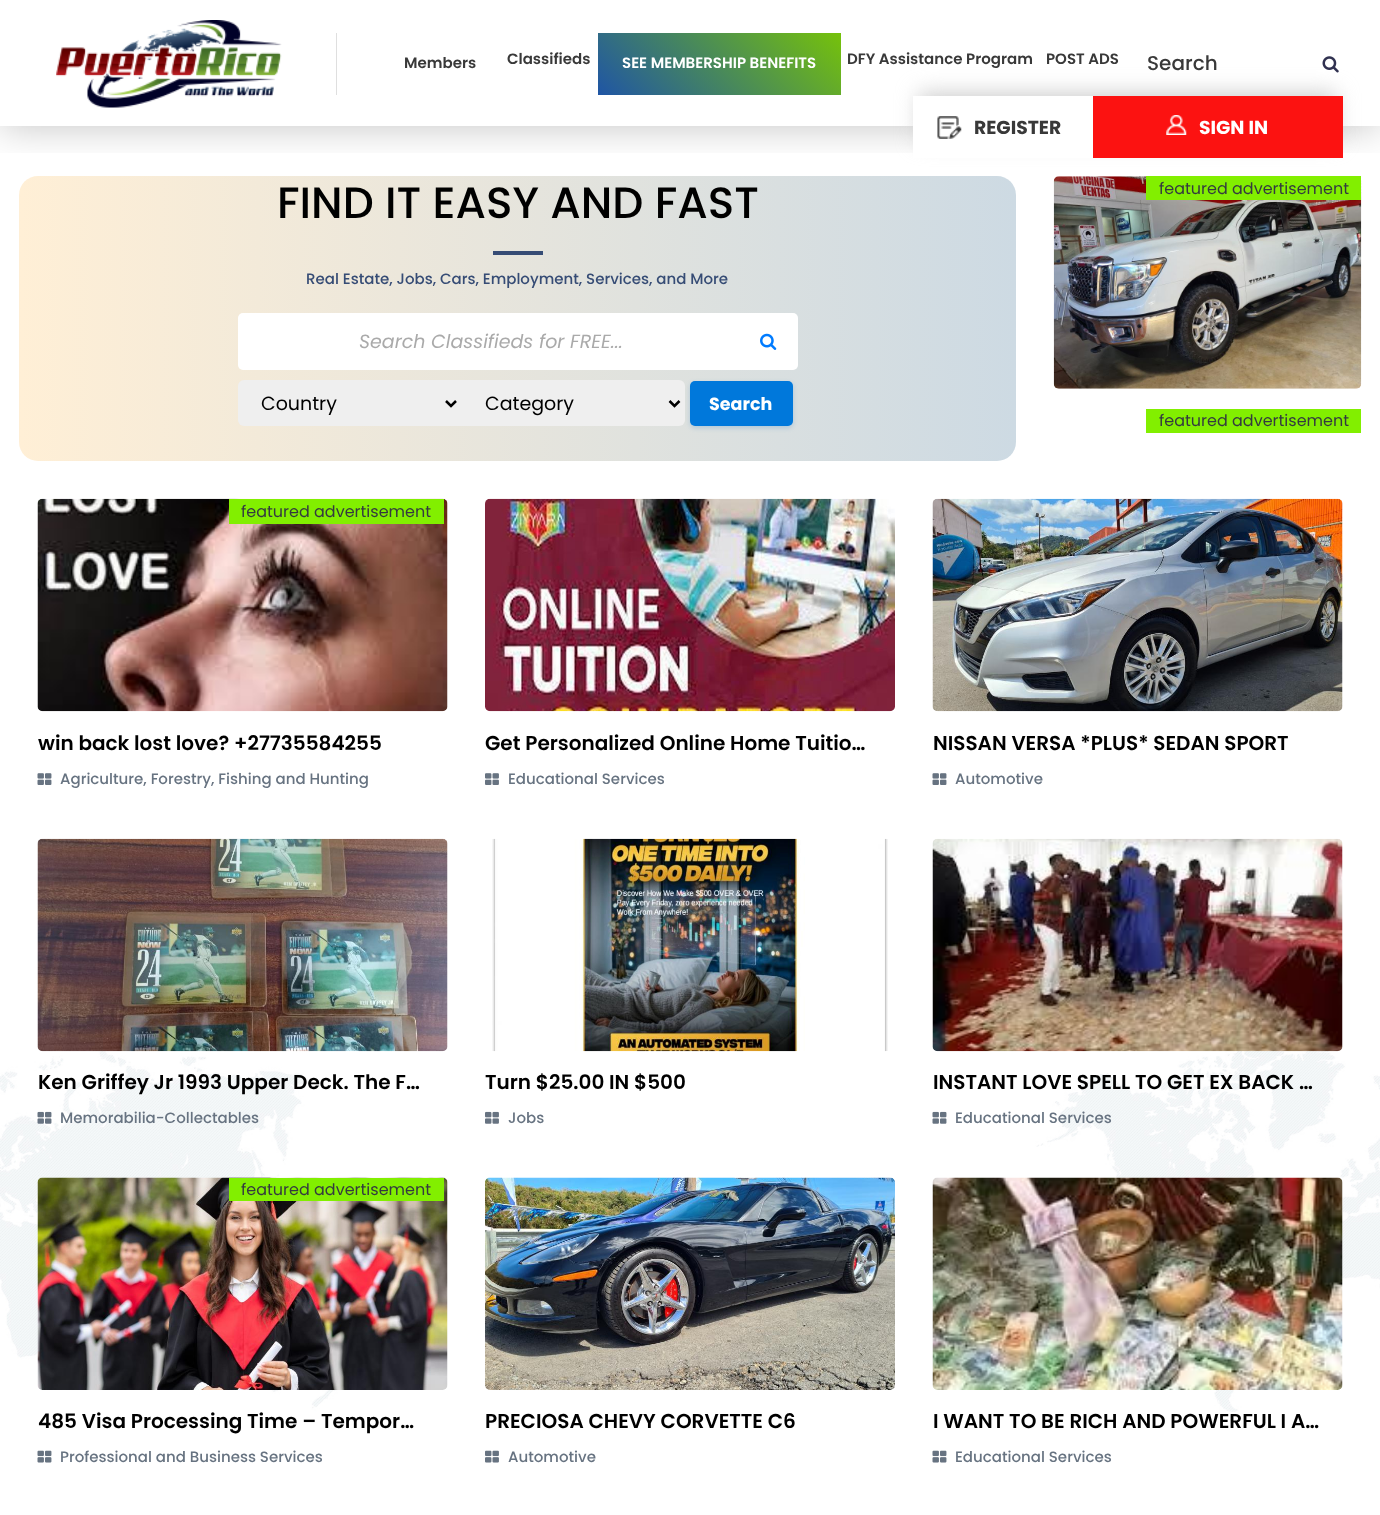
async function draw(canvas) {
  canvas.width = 1380;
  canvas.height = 1515;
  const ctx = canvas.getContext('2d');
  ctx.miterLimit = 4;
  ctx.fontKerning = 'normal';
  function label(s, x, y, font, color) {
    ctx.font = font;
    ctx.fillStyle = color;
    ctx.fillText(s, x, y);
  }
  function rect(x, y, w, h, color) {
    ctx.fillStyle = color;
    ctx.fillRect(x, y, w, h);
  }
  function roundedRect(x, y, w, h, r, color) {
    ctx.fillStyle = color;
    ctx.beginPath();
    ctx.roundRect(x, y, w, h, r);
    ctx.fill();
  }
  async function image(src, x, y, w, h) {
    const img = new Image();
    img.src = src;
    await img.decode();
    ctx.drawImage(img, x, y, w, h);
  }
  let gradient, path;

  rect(0, 0, 1380, 1515, '#fff');
  ctx.save();
  ctx.beginPath();
  ctx.rect(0, 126, 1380, 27);
  ctx.clip();
  ctx.fillStyle = '#00000038';
  ctx.filter = 'blur(19px)';
  ctx.beginPath();
  ctx.rect(0, 1, 1380, 127);
  ctx.fill();
  ctx.filter = 'none';
  ctx.restore();
  await image('assets/img1.png', 56, 20, 226, 88);
  rect(336, 33, 1, 62, '#dfdfdf');
  label('Members', 404, 68, '600 15px Poppins', '#393939');
  label('Classifieds', 507, 64, '600 15px Poppins', '#393939');
  gradient = ctx.createLinearGradient(643, 140, 796, -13);
  gradient.addColorStop(0, '#1f55a5');
  gradient.addColorStop(1, '#76c20a');
  ctx.fillStyle = gradient;
  ctx.fillRect(598, 33, 243, 62);
  label('SEE MEMBERSHIP BENEFITS', 622, 68, '600 15px Poppins', '#fff');
  label('DFY Assistance Program', 847, 64, '600 15px Poppins', '#393939');
  label('POST ADS', 1046, 64, '600 15px Poppins', '#393939');
  label('Search', 1147, 70, '500 20px Poppins', '#393939');
  await image('assets/img2.png', 1322, 56, 17, 17);
  ctx.fillStyle = '#ccc';
  ctx.filter = 'blur(10.5px)';
  ctx.beginPath();
  ctx.rect(919, 93, 417, 48);
  ctx.fill();
  ctx.filter = 'none';
  rect(913, 96, 180, 62, '#fff');
  await image('assets/img3.png', 937, 116, 25, 23);
  label('REGISTER', 974, 134, 'bold 18.75px Poppins', '#393939');
  rect(1093, 96, 250, 62, '#fc1211');
  await image('assets/img4.png', 1166, 115, 21, 20);
  label('SIGN IN', 1199, 134, 'bold 18.75px Poppins', '#fff');
  gradient = ctx.createLinearGradient(19, 319, 1016, 319);
  gradient.addColorStop(0, '#ffefd6');
  gradient.addColorStop(1, '#cddae3');
  ctx.fillStyle = gradient;
  ctx.beginPath();
  ctx.roundRect(19, 176, 997, 285, 19);
  ctx.fill();
  label('FIND IT EASY AND FAST', 277, 218, '500 43.75px Poppins', '#000');
  rect(493, 251, 50, 4, '#364c75');
  label('Real Estate, Jobs, Cars, Employment, Services, and More', 306, 284, '500 15px Poppins', '#364c75');
  roundedRect(238, 313, 560, 57, 5, '#fff');
  label('Search Classifieds for FREE...', 359, 348, 'italic 19px Poppins', '#aaa');
  await image('assets/img5.png', 760, 333, 17, 17);
  ctx.fillStyle = '#efefef';
  ctx.beginPath();
  ctx.roundRect(238, 380, 223, 46, [6, 0, 0, 6]);
  ctx.fill();
  path = new Path2D('M446 401L451 406L456 401');
  ctx.strokeStyle = '#000';
  ctx.lineWidth = 2.5;
  ctx.stroke(path);
  label('Country', 261, 410, '19px Poppins', '#000');
  ctx.fillStyle = '#efefef';
  ctx.beginPath();
  ctx.roundRect(461, 380, 224, 46, [0, 6, 6, 0]);
  ctx.fill();
  path = new Path2D('M669.5 401L674.5 406L679.5 401');
  ctx.stroke(path);
  label('Category', 485, 410, '19px Poppins', '#000');
  ctx.fillStyle = '#006ac233';
  ctx.filter = 'blur(2.5px)';
  ctx.beginPath();
  ctx.roundRect(690, 383, 103, 45, 5);
  ctx.fill();
  ctx.filter = 'none';
  roundedRect(690, 381, 103, 45, 5, '#0078db');
  label('Search', 709, 410, 'bold 17.5px Poppins', '#fff');
  await image('assets/img6.png', 1053, 176, 309, 213);
  rect(1146, 176, 215, 24, '#82ef00');
  label('featured advertisement', 1159, 194, '16px Poppins', '#343a40');
  rect(1146, 409, 215, 24, '#82ef00');
  label('featured advertisement', 1159, 426, '16px Poppins', '#343a40');
  await image('assets/img7.png', 0, 1042, 1380, 370);
  await image('assets/img8.png', 37, 498, 411, 214);
  rect(229, 499, 215, 25, '#82ef00');
  label('featured advertisement', 241, 517, '16px Poppins', '#343a40');
  label('win back lost love? +27735584255', 38, 750, '600 20px Poppins', '#000');
  await image('assets/img9.png', 37, 773, 15, 12);
  label('Agriculture, Forestry, Fishing and Hunting', 60, 784, '500 15px Poppins', '#677381');
  await image('assets/img10.png', 485, 498, 410, 214);
  label('Get Personalized Online Home Tuitio…', 485, 750, '600 20px Poppins', '#000');
  await image('assets/img11.png', 485, 773, 14, 12);
  label('Educational Services', 508, 784, '500 15px Poppins', '#677381');
  await image('assets/img12.png', 932, 498, 411, 214);
  label('NISSAN VERSA *PLUS* SEDAN SPORT', 933, 750, '600 20px Poppins', '#000');
  await image('assets/img9.png', 932, 773, 15, 12);
  label('Automotive', 955, 784, '500 15px Poppins', '#677381');
  await image('assets/img13.png', 37, 838, 411, 214);
  label('Ken Griffey Jr 1993 Upper Deck. The F…', 38, 1089, '600 20px Poppins', '#000');
  await image('assets/img14.png', 37, 1111, 15, 13);
  label('Memorabilia-Collectables', 60, 1123, '500 15px Poppins', '#677381');
  await image('assets/img15.png', 492, 838, 396, 214);
  label('Turn $25.00 IN $500', 485, 1089, '600 20px Poppins', '#000');
  await image('assets/img16.png', 485, 1111, 14, 13);
  label('Jobs', 508, 1123, '500 15px Poppins', '#677381');
  await image('assets/img17.png', 932, 838, 411, 214);
  label('INSTANT LOVE SPELL TO GET EX BACK …', 933, 1089, '600 20px Poppins', '#000');
  await image('assets/img18.png', 932, 1111, 15, 13);
  label('Educational Services', 955, 1123, '500 15px Poppins', '#677381');
  await image('assets/img19.png', 37, 1177, 411, 213);
  rect(229, 1178, 215, 23, '#82ef00');
  label('featured advertisement', 241, 1195, '16px Poppins', '#343a40');
  label('485 Visa Processing Time – Tempor…', 38, 1428, '600 20px Poppins', '#000');
  await image('assets/img20.png', 37, 1450, 15, 13);
  label('Professional and Business Services', 60, 1462, '500 15px Poppins', '#677381');
  await image('assets/img21.png', 485, 1177, 410, 213);
  label('PRECIOSA CHEVY CORVETTE C6', 485, 1428, '600 20px Poppins', '#000');
  await image('assets/img22.png', 485, 1450, 14, 13);
  label('Automotive', 508, 1462, '500 15px Poppins', '#677381');
  await image('assets/img23.png', 932, 1177, 411, 213);
  label('I WANT TO BE RICH AND POWERFUL I A…', 933, 1428, '600 20px Poppins', '#000');
  await image('assets/img20.png', 932, 1450, 15, 13);
  label('Educational Services', 955, 1462, '500 15px Poppins', '#677381');
}

draw(document.querySelector('canvas'));
